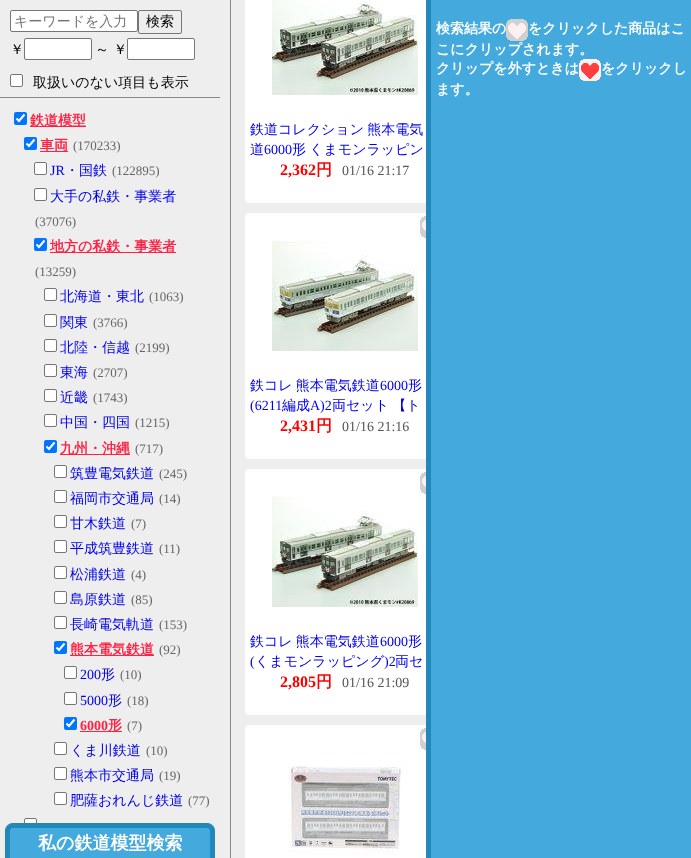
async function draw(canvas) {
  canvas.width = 691;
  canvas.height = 858;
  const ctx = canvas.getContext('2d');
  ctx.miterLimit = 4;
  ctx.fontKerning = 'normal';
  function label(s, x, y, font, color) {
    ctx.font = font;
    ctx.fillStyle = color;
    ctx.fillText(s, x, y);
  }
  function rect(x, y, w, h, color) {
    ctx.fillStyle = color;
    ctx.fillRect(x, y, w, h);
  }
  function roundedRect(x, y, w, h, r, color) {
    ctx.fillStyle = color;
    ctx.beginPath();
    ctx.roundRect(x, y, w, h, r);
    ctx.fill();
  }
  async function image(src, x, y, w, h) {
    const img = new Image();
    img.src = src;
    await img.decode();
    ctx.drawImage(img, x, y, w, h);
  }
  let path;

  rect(0, 0, 691, 858, '#eee');
  rect(230, 0, 1, 858, '#888');
  ctx.fillStyle = '#fff';
  ctx.beginPath();
  ctx.roundRect(10.5, 10.5, 127, 21, 1.5);
  ctx.fill();
  ctx.strokeStyle = '#767676';
  ctx.stroke();
  label('キーワードを入力', 14, 26, '500 14px WenQuanYi Zen Hei', '#757575');
  ctx.beginPath();
  ctx.roundRect(138.5, 10.5, 43, 23, 1.5);
  ctx.stroke();
  label('検索', 146, 26, '500 14px WenQuanYi Zen Hei', '#000');
  label('￥', 10, 54, '500 14px WenQuanYi Zen Hei', '#000');
  ctx.fillStyle = '#fff';
  ctx.beginPath();
  ctx.roundRect(24.5, 38.5, 67, 21, 1.5);
  ctx.fill();
  ctx.stroke();
  label('～ ￥', 95, 54, '500 14px WenQuanYi Zen Hei', '#000');
  ctx.fillStyle = '#fff';
  ctx.beginPath();
  ctx.roundRect(127.5, 38.5, 67, 21, 1.5);
  ctx.fill();
  ctx.stroke();
  ctx.beginPath();
  ctx.roundRect(10.5, 74.5, 12, 12, 1.5);
  ctx.fill();
  ctx.stroke();
  label('取扱いのない項目も表示', 33, 87, '500 14px WenQuanYi Zen Hei', '#000');
  rect(0, 97, 220, 1, '#888');
  roundedRect(14, 112, 13, 13, 2, '#0075ff');
  path = new Path2D('M16.5 118.5L19 121L24.5 114.5');
  ctx.strokeStyle = '#fff';
  ctx.lineWidth = 2.1;
  ctx.stroke(path);
  rect(30, 126, 56, 1, '#f24');
  label('鉄道模型', 30, 125, 'bold 14px WenQuanYi Zen Hei', '#f24');
  roundedRect(24, 137, 13, 13, 2, '#0075ff');
  path = new Path2D('M26.5 143.5L29 146L34.5 139.5');
  ctx.stroke(path);
  rect(40, 151, 28, 1, '#f24');
  label('車両', 40, 150, 'bold 14px WenQuanYi Zen Hei', '#f24');
  label('(170233)', 73, 150, '13px Liberation Serif', '#666');
  ctx.fillStyle = '#fff';
  ctx.beginPath();
  ctx.roundRect(34.5, 162.5, 12, 12, 1.5);
  ctx.fill();
  ctx.strokeStyle = '#767676';
  ctx.lineWidth = 1;
  ctx.stroke();
  label('JR', 50, 175, '14px Liberation Serif', '#00e');
  label('・国鉄', 65, 175, '500 14px WenQuanYi Zen Hei', '#00e');
  label('(122895)', 112, 175, '13px Liberation Serif', '#666');
  ctx.fillStyle = '#fff';
  ctx.beginPath();
  ctx.roundRect(34.5, 188.5, 12, 12, 1.5);
  ctx.fill();
  ctx.stroke();
  label('大手の私鉄・事業者', 50, 201, '500 14px WenQuanYi Zen Hei', '#00e');
  label('(37076)', 35, 226, '13px Liberation Serif', '#666');
  roundedRect(34, 238, 13, 13, 2, '#0075ff');
  path = new Path2D('M36.5 244.5L39 247L44.5 240.5');
  ctx.strokeStyle = '#fff';
  ctx.lineWidth = 2.1;
  ctx.stroke(path);
  rect(50, 252, 126, 1, '#f24');
  label('地方の私鉄・事業者', 50, 251, 'bold 14px WenQuanYi Zen Hei', '#f24');
  label('(13259)', 35, 276, '13px Liberation Serif', '#666');
  ctx.fillStyle = '#fff';
  ctx.beginPath();
  ctx.roundRect(44.5, 288.5, 12, 12, 1.5);
  ctx.fill();
  ctx.strokeStyle = '#767676';
  ctx.lineWidth = 1;
  ctx.stroke();
  label('北海道・東北', 60, 301, '500 14px WenQuanYi Zen Hei', '#00e');
  label('(1063)', 149, 301, '13px Liberation Serif', '#666');
  ctx.fillStyle = '#fff';
  ctx.beginPath();
  ctx.roundRect(44.5, 314.5, 12, 12, 1.5);
  ctx.fill();
  ctx.stroke();
  label('関東', 60, 327, '500 14px WenQuanYi Zen Hei', '#00e');
  label('(3766)', 93, 327, '13px Liberation Serif', '#666');
  ctx.fillStyle = '#fff';
  ctx.beginPath();
  ctx.roundRect(44.5, 339.5, 12, 12, 1.5);
  ctx.fill();
  ctx.stroke();
  label('北陸・信越', 60, 352, '500 14px WenQuanYi Zen Hei', '#00e');
  label('(2199)', 135, 352, '13px Liberation Serif', '#666');
  ctx.fillStyle = '#fff';
  ctx.beginPath();
  ctx.roundRect(44.5, 364.5, 12, 12, 1.5);
  ctx.fill();
  ctx.stroke();
  label('東海', 60, 377, '500 14px WenQuanYi Zen Hei', '#00e');
  label('(2707)', 93, 377, '13px Liberation Serif', '#666');
  ctx.fillStyle = '#fff';
  ctx.beginPath();
  ctx.roundRect(44.5, 389.5, 12, 12, 1.5);
  ctx.fill();
  ctx.stroke();
  label('近畿', 60, 402, '500 14px WenQuanYi Zen Hei', '#00e');
  label('(1743)', 93, 402, '13px Liberation Serif', '#666');
  ctx.fillStyle = '#fff';
  ctx.beginPath();
  ctx.roundRect(44.5, 414.5, 12, 12, 1.5);
  ctx.fill();
  ctx.stroke();
  label('中国・四国', 60, 427, '500 14px WenQuanYi Zen Hei', '#00e');
  label('(1215)', 135, 427, '13px Liberation Serif', '#666');
  roundedRect(44, 440, 13, 13, 2, '#0075ff');
  path = new Path2D('M46.5 446.5L49 449L54.5 442.5');
  ctx.strokeStyle = '#fff';
  ctx.lineWidth = 2.1;
  ctx.stroke(path);
  rect(60, 454, 70, 1, '#f24');
  label('九州・沖縄', 60, 453, 'bold 14px WenQuanYi Zen Hei', '#f24');
  label('(717)', 135, 453, '13px Liberation Serif', '#666');
  ctx.fillStyle = '#fff';
  ctx.beginPath();
  ctx.roundRect(54.5, 465.5, 12, 12, 1.5);
  ctx.fill();
  ctx.strokeStyle = '#767676';
  ctx.lineWidth = 1;
  ctx.stroke();
  label('筑豊電気鉄道', 70, 478, '500 14px WenQuanYi Zen Hei', '#00e');
  label('(245)', 159, 478, '13px Liberation Serif', '#666');
  ctx.fillStyle = '#fff';
  ctx.beginPath();
  ctx.roundRect(54.5, 490.5, 12, 12, 1.5);
  ctx.fill();
  ctx.stroke();
  label('福岡市交通局', 70, 503, '500 14px WenQuanYi Zen Hei', '#00e');
  label('(14)', 159, 503, '13px Liberation Serif', '#666');
  ctx.fillStyle = '#fff';
  ctx.beginPath();
  ctx.roundRect(54.5, 515.5, 12, 12, 1.5);
  ctx.fill();
  ctx.stroke();
  label('甘木鉄道', 70, 528, '500 14px WenQuanYi Zen Hei', '#00e');
  label('(7)', 131, 528, '13px Liberation Serif', '#666');
  ctx.fillStyle = '#fff';
  ctx.beginPath();
  ctx.roundRect(54.5, 540.5, 12, 12, 1.5);
  ctx.fill();
  ctx.stroke();
  label('平成筑豊鉄道', 70, 553, '500 14px WenQuanYi Zen Hei', '#00e');
  label('(11)', 159, 553, '13px Liberation Serif', '#666');
  ctx.fillStyle = '#fff';
  ctx.beginPath();
  ctx.roundRect(54.5, 566.5, 12, 12, 1.5);
  ctx.fill();
  ctx.stroke();
  label('松浦鉄道', 70, 579, '500 14px WenQuanYi Zen Hei', '#00e');
  label('(4)', 131, 579, '13px Liberation Serif', '#666');
  ctx.fillStyle = '#fff';
  ctx.beginPath();
  ctx.roundRect(54.5, 591.5, 12, 12, 1.5);
  ctx.fill();
  ctx.stroke();
  label('島原鉄道', 70, 604, '500 14px WenQuanYi Zen Hei', '#00e');
  label('(85)', 131, 604, '13px Liberation Serif', '#666');
  ctx.fillStyle = '#fff';
  ctx.beginPath();
  ctx.roundRect(54.5, 616.5, 12, 12, 1.5);
  ctx.fill();
  ctx.stroke();
  label('長崎電気軌道', 70, 629, '500 14px WenQuanYi Zen Hei', '#00e');
  label('(153)', 159, 629, '13px Liberation Serif', '#666');
  roundedRect(54, 641, 13, 13, 2, '#0075ff');
  path = new Path2D('M56.5 647.5L59 650L64.5 643.5');
  ctx.strokeStyle = '#fff';
  ctx.lineWidth = 2.1;
  ctx.stroke(path);
  rect(70, 655, 84, 1, '#f24');
  label('熊本電気鉄道', 70, 654, 'bold 14px WenQuanYi Zen Hei', '#f24');
  label('(92)', 159, 654, '13px Liberation Serif', '#666');
  ctx.fillStyle = '#fff';
  ctx.beginPath();
  ctx.roundRect(64.5, 666.5, 12, 12, 1.5);
  ctx.fill();
  ctx.strokeStyle = '#767676';
  ctx.lineWidth = 1;
  ctx.stroke();
  label('200', 80, 679, '14px Liberation Serif', '#00e');
  label('形', 101, 679, '500 14px WenQuanYi Zen Hei', '#00e');
  label('(10)', 120, 679, '13px Liberation Serif', '#666');
  ctx.fillStyle = '#fff';
  ctx.beginPath();
  ctx.roundRect(64.5, 692.5, 12, 12, 1.5);
  ctx.fill();
  ctx.stroke();
  label('5000', 80, 705, '14px Liberation Serif', '#00e');
  label('形', 108, 705, '500 14px WenQuanYi Zen Hei', '#00e');
  label('(18)', 127, 705, '13px Liberation Serif', '#666');
  roundedRect(64, 717, 13, 13, 2, '#0075ff');
  path = new Path2D('M66.5 723.5L69 726L74.5 719.5');
  ctx.strokeStyle = '#fff';
  ctx.lineWidth = 2.1;
  ctx.stroke(path);
  label('6000', 80, 730, 'bold 14px Liberation Serif', '#f24');
  rect(80, 731, 42, 1, '#f24');
  label('形', 108, 730, 'bold 14px WenQuanYi Zen Hei', '#f24');
  label('(7)', 127, 730, '13px Liberation Serif', '#666');
  ctx.fillStyle = '#fff';
  ctx.beginPath();
  ctx.roundRect(54.5, 742.5, 12, 12, 1.5);
  ctx.fill();
  ctx.strokeStyle = '#767676';
  ctx.lineWidth = 1;
  ctx.stroke();
  label('くま川鉄道', 70, 755, '500 14px WenQuanYi Zen Hei', '#00e');
  label('(10)', 146, 755, '13px Liberation Serif', '#666');
  ctx.fillStyle = '#fff';
  ctx.beginPath();
  ctx.roundRect(54.5, 767.5, 12, 12, 1.5);
  ctx.fill();
  ctx.stroke();
  label('熊本市交通局', 70, 780, '500 14px WenQuanYi Zen Hei', '#00e');
  label('(19)', 159, 780, '13px Liberation Serif', '#666');
  ctx.fillStyle = '#fff';
  ctx.beginPath();
  ctx.roundRect(54.5, 792.5, 12, 12, 1.5);
  ctx.fill();
  ctx.stroke();
  label('肥薩おれんじ鉄道', 70, 805, '500 14px WenQuanYi Zen Hei', '#00e');
  label('(77)', 188, 805, '13px Liberation Serif', '#666');
  ctx.fillStyle = '#fff';
  ctx.beginPath();
  ctx.roundRect(24.5, 818.5, 12, 12, 1.5);
  ctx.fill();
  ctx.stroke();
  ctx.fillStyle = '#4ad';
  ctx.beginPath();
  ctx.roundRect(5, 823, 210, 35, [8, 8, 0, 0]);
  ctx.fill();
  ctx.fillStyle = '#28b';
  path = new Path2D('M13 823H207C211 823 215 827 215 831V858H5V831C5 827 9 823 13 823ZM13 828H207C209 828 210 829 210 831V858H10V831C10 829 11 828 13 828Z');
  ctx.fill(path, 'evenodd');
  label('私の鉄道模型検索', 38, 849, 'bold 18px WenQuanYi Zen Hei', '#fff');
  roundedRect(245, -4, 200, 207, 4, '#fff');
  roundedRect(245, 213, 200, 246, 4, '#fff');
  roundedRect(245, 469, 200, 246, 4, '#fff');
  roundedRect(245, 725, 200, 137, 4, '#fff');
  rect(431, 0, 260, 858, '#4ad');
  rect(426, 0, 5, 858, '#28b');
  label('検索結果の', 436, 33, 'bold 14px WenQuanYi Zen Hei', '#fff');
  await image('assets/img1.png', 506, 19, 22, 22);
  label('をクリックした商品はこ', 528, 33, 'bold 14px WenQuanYi Zen Hei', '#fff');
  label('こにクリップされます。', 436, 54, 'bold 14px WenQuanYi Zen Hei', '#fff');
  label('クリップを外すときは', 436, 73, 'bold 14px WenQuanYi Zen Hei', '#fff');
  await image('assets/img2.png', 579, 59, 22, 22);
  label('をクリックし', 601, 73, 'bold 14px WenQuanYi Zen Hei', '#fff');
  label('ます。', 436, 94, 'bold 14px WenQuanYi Zen Hei', '#fff');
  await image('assets/img3.png', 272, 0, 146, 95);
  ctx.wordSpacing = '-1px';
  label('鉄道コレクション 熊本電気', 250, 134, '500 14px WenQuanYi Zen Hei', '#00e');
  ctx.wordSpacing = '0px';
  label('道', 250, 154, '500 14px WenQuanYi Zen Hei', '#00e');
  label('6000', 264, 154, '14px Liberation Serif', '#00e');
  ctx.wordSpacing = '-1px';
  label('形 くまモンラッピン', 292, 154, '500 14px WenQuanYi Zen Hei', '#00e');
  ctx.wordSpacing = '0px';
  label('2,362', 280, 175, 'bold 16px Liberation Serif', '#f00');
  label('円', 316, 175, 'bold 16px WenQuanYi Zen Hei', '#f00');
  label('01/16 21:17', 342, 175, '14px Liberation Serif', '#555');
  await image('assets/img4.png', 420, 216, 6, 22);
  await image('assets/img5.png', 272, 239, 146, 112);
  ctx.wordSpacing = '-1px';
  label('鉄コレ 熊本電気鉄道', 250, 390, '500 14px WenQuanYi Zen Hei', '#00e');
  ctx.wordSpacing = '0px';
  label('6000', 380, 390, '14px Liberation Serif', '#00e');
  label('形', 408, 390, '500 14px WenQuanYi Zen Hei', '#00e');
  label('(6211', 250, 410, '14px Liberation Serif', '#00e');
  label('編成', 282, 410, '500 14px WenQuanYi Zen Hei', '#00e');
  label('A)2', 310, 410, '14px Liberation Serif', '#00e');
  ctx.wordSpacing = '-1px';
  label('両セット 【ト', 332, 410, '500 14px WenQuanYi Zen Hei', '#00e');
  ctx.wordSpacing = '0px';
  label('2,431', 280, 431, 'bold 16px Liberation Serif', '#f00');
  label('円', 316, 431, 'bold 16px WenQuanYi Zen Hei', '#f00');
  label('01/16 21:16', 342, 431, '14px Liberation Serif', '#555');
  await image('assets/img4.png', 420, 472, 6, 22);
  await image('assets/img6.png', 272, 495, 146, 112);
  ctx.wordSpacing = '-1px';
  label('鉄コレ 熊本電気鉄道', 250, 646, '500 14px WenQuanYi Zen Hei', '#00e');
  ctx.wordSpacing = '0px';
  label('6000', 380, 646, '14px Liberation Serif', '#00e');
  label('形', 408, 646, '500 14px WenQuanYi Zen Hei', '#00e');
  label('(', 250, 666, '14px Liberation Serif', '#00e');
  label('くまモンラッピング', 255, 666, '500 14px WenQuanYi Zen Hei', '#00e');
  label(')2', 384, 666, '14px Liberation Serif', '#00e');
  label('両セ', 395, 666, '500 14px WenQuanYi Zen Hei', '#00e');
  label('2,805', 280, 687, 'bold 16px Liberation Serif', '#f00');
  label('円', 316, 687, 'bold 16px WenQuanYi Zen Hei', '#f00');
  label('01/16 21:09', 342, 687, '14px Liberation Serif', '#555');
  await image('assets/img4.png', 420, 728, 6, 22);
  await image('assets/img7.png', 288, 765, 119, 90);
}

draw(document.querySelector('canvas'));
